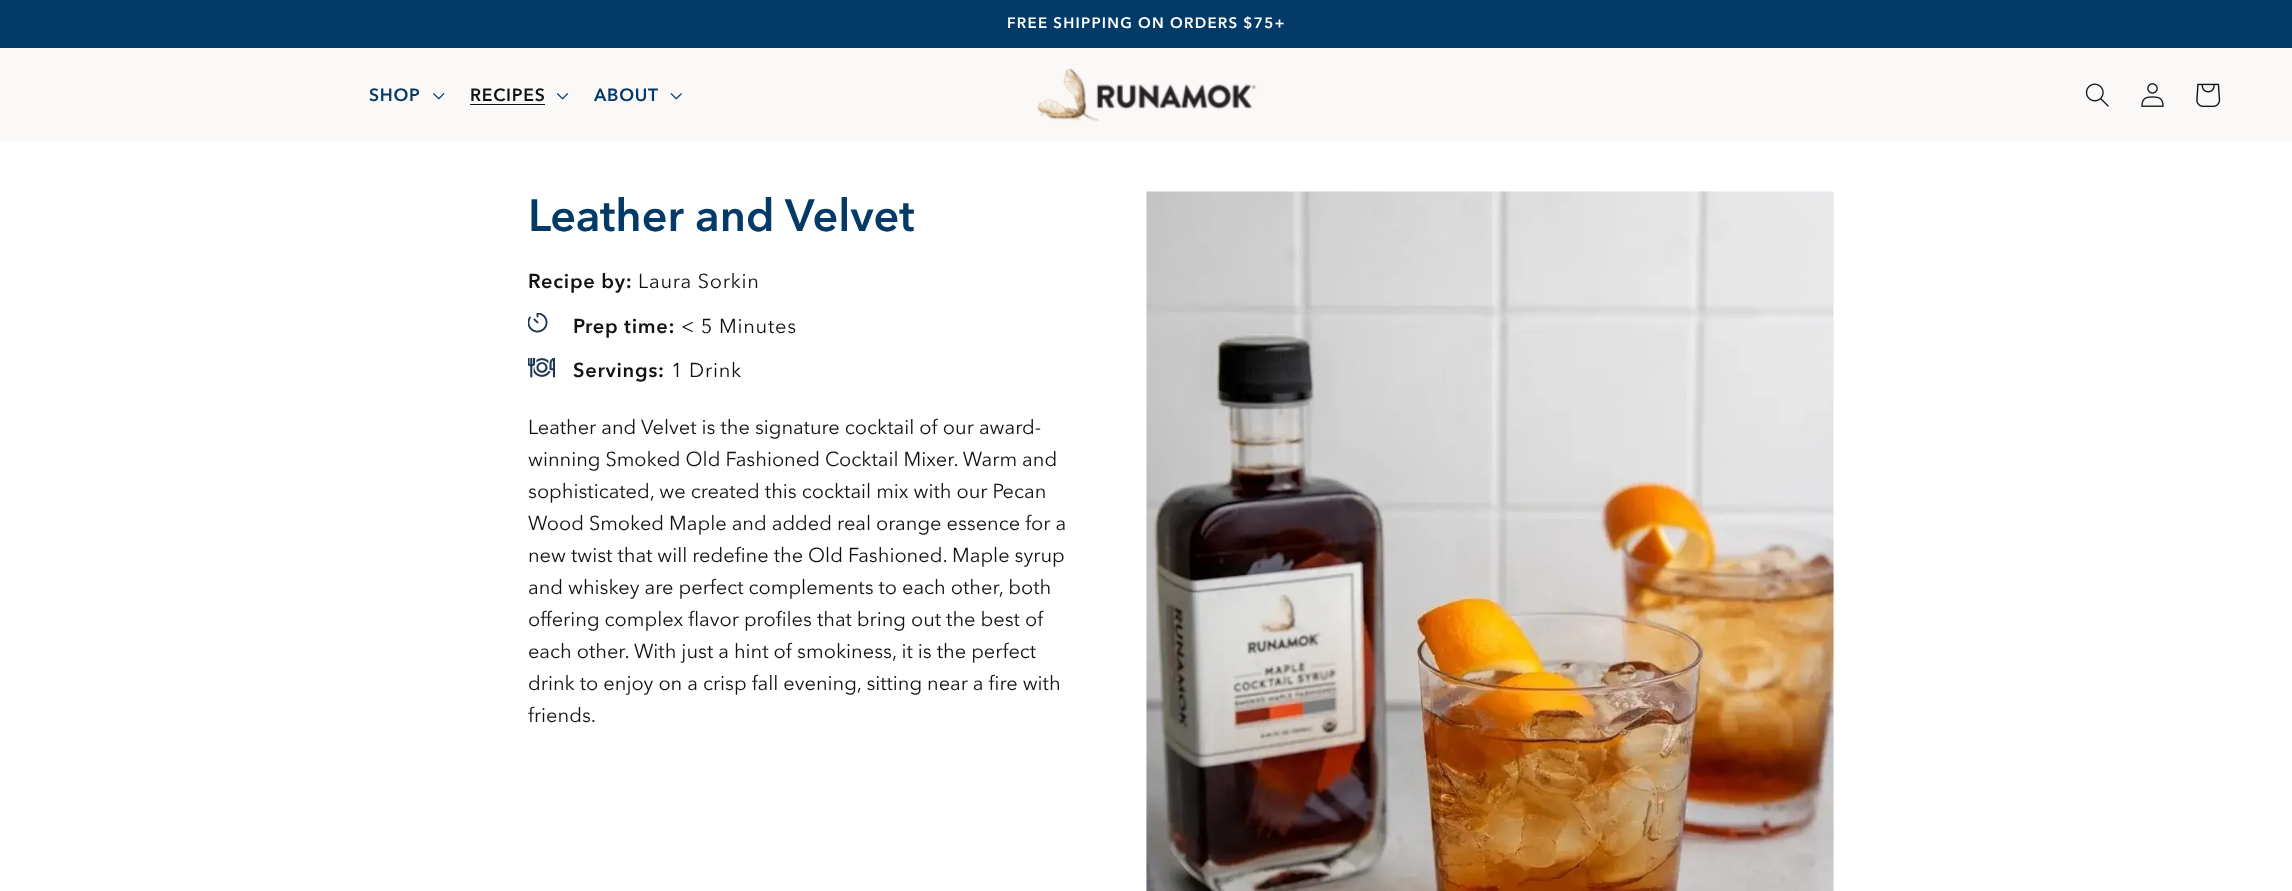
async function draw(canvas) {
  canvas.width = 2292;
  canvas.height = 891;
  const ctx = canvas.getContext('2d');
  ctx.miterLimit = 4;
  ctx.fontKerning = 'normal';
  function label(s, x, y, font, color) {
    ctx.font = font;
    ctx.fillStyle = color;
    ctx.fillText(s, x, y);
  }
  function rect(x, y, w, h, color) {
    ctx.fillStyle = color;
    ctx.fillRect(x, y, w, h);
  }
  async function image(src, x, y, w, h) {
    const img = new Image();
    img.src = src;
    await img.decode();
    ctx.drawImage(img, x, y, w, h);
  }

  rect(0, 0, 2292, 891, '#fff');
  rect(0, 0, 2292, 48, '#043a67');
  ctx.letterSpacing = '1.25px';
  label('FREE SHIPPING ON ORDERS $75+', 1007, 28, 'bold 15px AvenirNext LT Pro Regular', '#fff');
  rect(0, 48, 2292, 93, '#fbf9f7');
  ctx.letterSpacing = '0.75px';
  label('SHOP', 369, 101, 'bold 17.5px AvenirNext LT Pro Regular', '#043a67');
  await image('assets/img1.png', 433, 93, 12, 7);
  label('RECIPES', 470, 101, 'bold 17.5px AvenirNext LT Pro Regular', '#121212');
  rect(470, 104, 75, 1, '#121212');
  await image('assets/img2.png', 556, 93, 13, 7);
  label('ABOUT', 594, 101, 'bold 17.5px AvenirNext LT Pro Regular', '#043a67');
  await image('assets/img3.png', 670, 93, 12, 7);
  await image('assets/img4.png', 1037, 68, 220, 54);
  await image('assets/img5.png', 2085, 83, 24, 24);
  await image('assets/img6.png', 2141, 83, 23, 24);
  await image('assets/img7.png', 2196, 83, 25, 24);
  ctx.letterSpacing = '0px';
  label('Leather and Velvet', 528, 231, 'bold 45px AvenirNext LT Pro Regular', '#043a67');
  ctx.letterSpacing = '0.75px';
  label('Recipe by:', 528, 288, 'bold 20px AvenirNext LT Pro Regular', '#121212');
  label('Laura Sorkin', 638, 288, '20px AvenirNext LT Pro Regular', '#121212');
  await image('assets/img8.png', 528, 313, 20, 20);
  label('Prep time:', 573, 333, 'bold 20px AvenirNext LT Pro Regular', '#121212');
  label('< 5 Minutes', 681, 333, '20px AvenirNext LT Pro Regular', '#121212');
  await image('assets/img9.png', 528, 358, 27, 20);
  label('Servings:', 573, 377, 'bold 20px AvenirNext LT Pro Regular', '#121212');
  label('1 Drink', 671, 377, '20px AvenirNext LT Pro Regular', '#121212');
  ctx.letterSpacing = '0px';
  label('Leather and Velvet is the signature cocktail of our award-', 528, 434, '20px AvenirNext LT Pro Regular', '#121212');
  label('winning Smoked Old Fashioned Cocktail Mixer. Warm and', 528, 466, '20px AvenirNext LT Pro Regular', '#121212');
  label('sophisticated, we created this cocktail mix with our Pecan', 528, 498, '20px AvenirNext LT Pro Regular', '#121212');
  label('Wood Smoked Maple and added real orange essence for a', 528, 530, '20px AvenirNext LT Pro Regular', '#121212');
  label('new twist that will redefine the Old Fashioned. Maple syrup', 528, 562, '20px AvenirNext LT Pro Regular', '#121212');
  label('and whiskey are perfect complements to each other, both', 528, 594, '20px AvenirNext LT Pro Regular', '#121212');
  label('offering complex flavor profiles that bring out the best of', 528, 626, '20px AvenirNext LT Pro Regular', '#121212');
  label('each other. With just a hint of smokiness, it is the perfect', 528, 658, '20px AvenirNext LT Pro Regular', '#121212');
  label('drink to enjoy on a crisp fall evening, sitting near a fire with', 528, 690, '20px AvenirNext LT Pro Regular', '#121212');
  label('friends.', 528, 722, '20px AvenirNext LT Pro Regular', '#121212');
  await image('assets/img10.png', 1146, 191, 688, 700);
}

draw(document.querySelector('canvas'));
